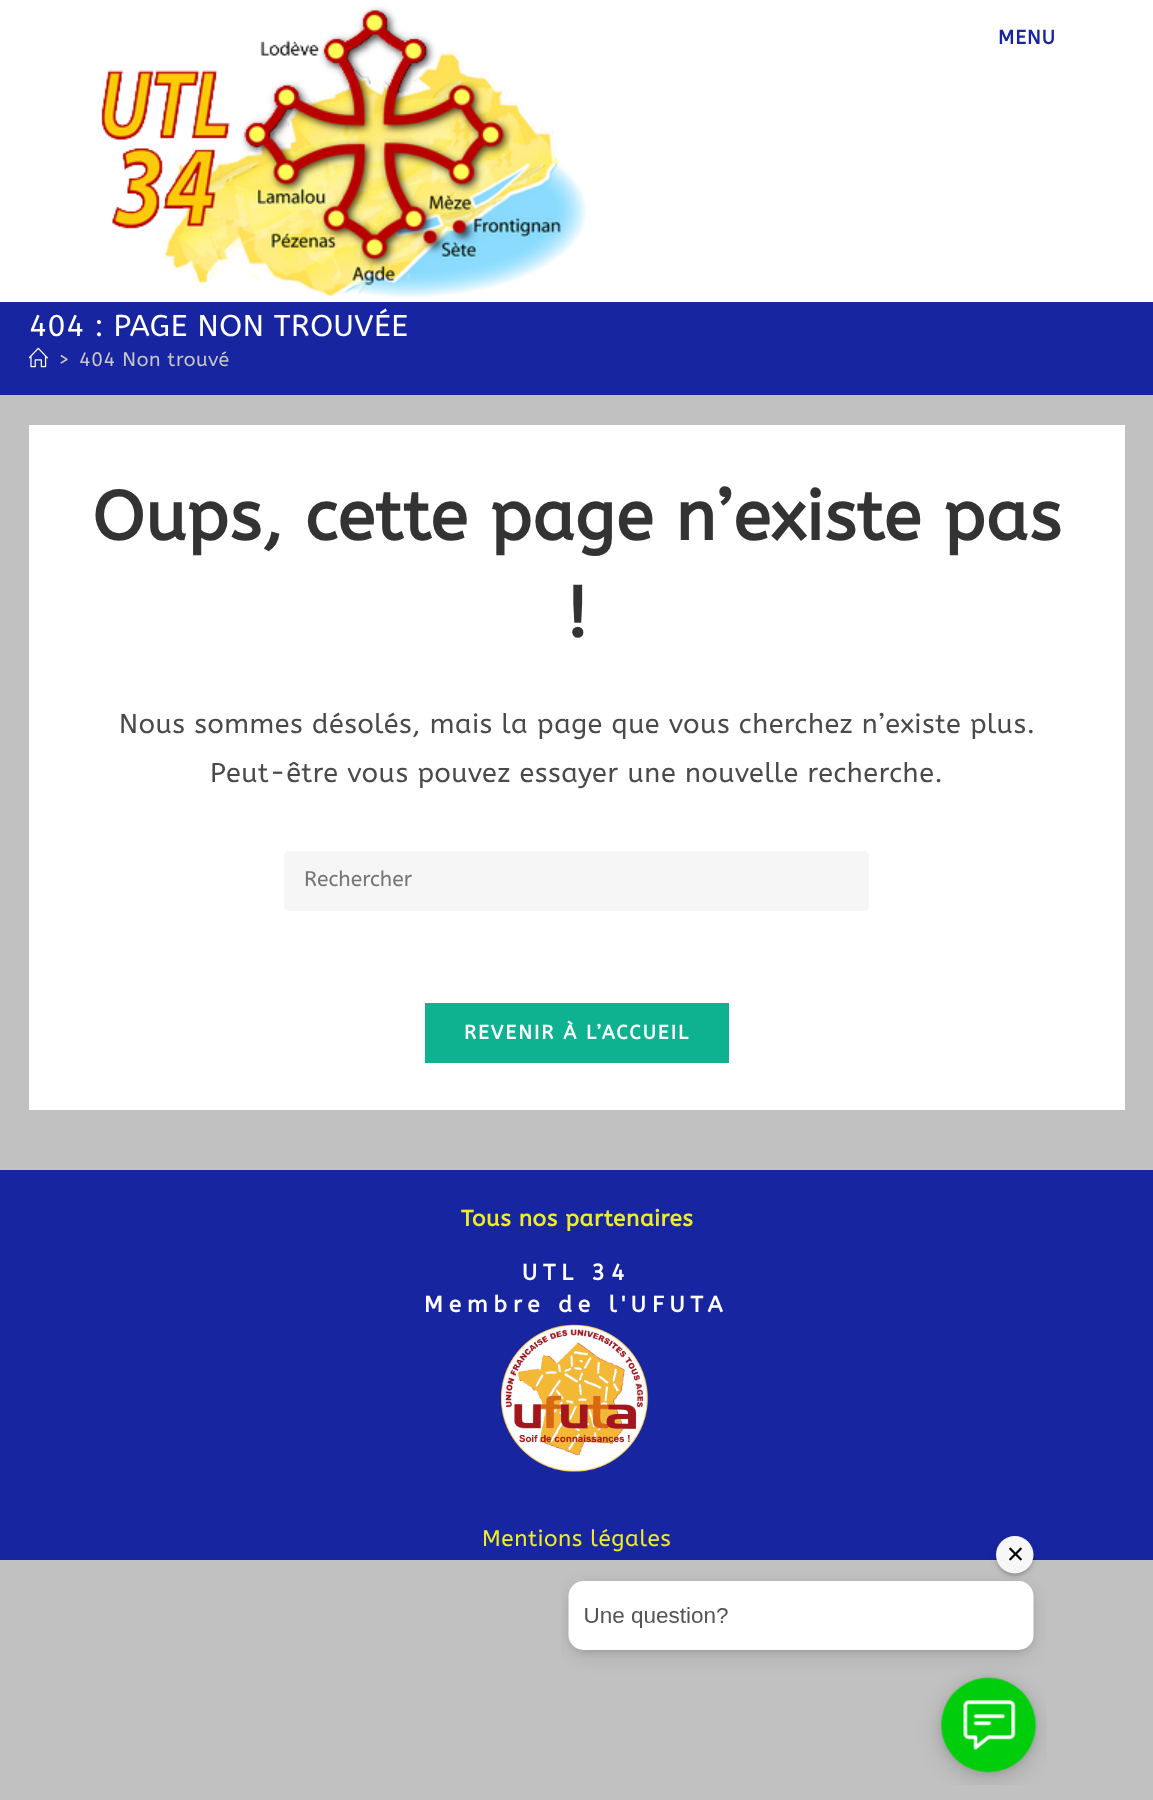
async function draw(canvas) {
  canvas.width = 1153;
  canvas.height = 1800;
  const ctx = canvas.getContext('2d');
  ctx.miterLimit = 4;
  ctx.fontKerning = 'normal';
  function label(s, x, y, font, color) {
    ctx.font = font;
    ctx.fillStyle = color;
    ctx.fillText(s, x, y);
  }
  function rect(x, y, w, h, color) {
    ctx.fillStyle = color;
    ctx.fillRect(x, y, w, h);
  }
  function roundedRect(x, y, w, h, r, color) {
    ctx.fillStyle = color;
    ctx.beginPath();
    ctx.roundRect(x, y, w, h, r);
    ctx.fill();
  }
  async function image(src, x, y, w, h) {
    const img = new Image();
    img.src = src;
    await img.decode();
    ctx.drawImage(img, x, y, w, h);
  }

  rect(0, 0, 1153, 1800, '#c1c1c1');
  rect(0, 0, 1153, 302, '#fff');
  await image('assets/img1.png', 101, 6, 486, 294);
  ctx.letterSpacing = '1px';
  label('MENU', 998, 44, 'bold 19.5px ABeeZee', '#1825a0');
  rect(0, 302, 1153, 93, '#1825a0');
  ctx.letterSpacing = '0.6px';
  label('404 : PAGE NON TROUVÉE', 29, 336, '30px ABeeZee', '#fff');
  await image('assets/img2.png', 29, 347, 19, 21);
  label('>', 58, 366, '19.5px ABeeZee', '#c6c6c6');
  label('404 Non trouvé', 79, 366, '19.5px ABeeZee', '#c6c6c6');
  rect(29, 425, 1096, 685, '#fff');
  label('Oups, cette page n’existe pas', 92, 540, 'bold 69px ABeeZee', '#333');
  label('!', 566, 637, 'bold 69px ABeeZee', '#333');
  label('Nous sommes désolés, mais la page que vous cherchez n’existe plus.', 119, 733, '27px ABeeZee', '#4a4a4a');
  label('Peut-être vous pouvez essayer une nouvelle recherche.', 210, 782, '27px ABeeZee', '#4a4a4a');
  roundedRect(284, 851, 585, 60, 5, '#f6f6f6');
  ctx.letterSpacing = '0px';
  label('Rechercher', 304, 886, '21px ABeeZee', '#757575');
  rect(425, 1003, 304, 60, '#0eb290');
  ctx.letterSpacing = '2px';
  label('REVENIR À L’ACCUEIL', 464, 1039, 'bold 19.5px ABeeZee', '#fff');
  rect(0, 1170, 1153, 390, '#1825a0');
  ctx.letterSpacing = '0.6px';
  label('Tous nos partenaires', 461, 1226, 'bold 22.5px ABeeZee', '#ee2');
  ctx.letterSpacing = '6px';
  label('UTL 34', 522, 1280, 'bold 22.5px ABeeZee', '#fff');
  label('Membre de l\'UFUTA', 424, 1312, 'bold 22.5px ABeeZee', '#fff');
  await image('assets/img3.png', 501, 1324, 148, 148);
  ctx.letterSpacing = '0.6px';
  label('Mentions légales', 482, 1546, '22.5px ABeeZee', '#ee2');
  await image('assets/img4.png', 561, 1536, 486, 249);
}

draw(document.querySelector('canvas'));
